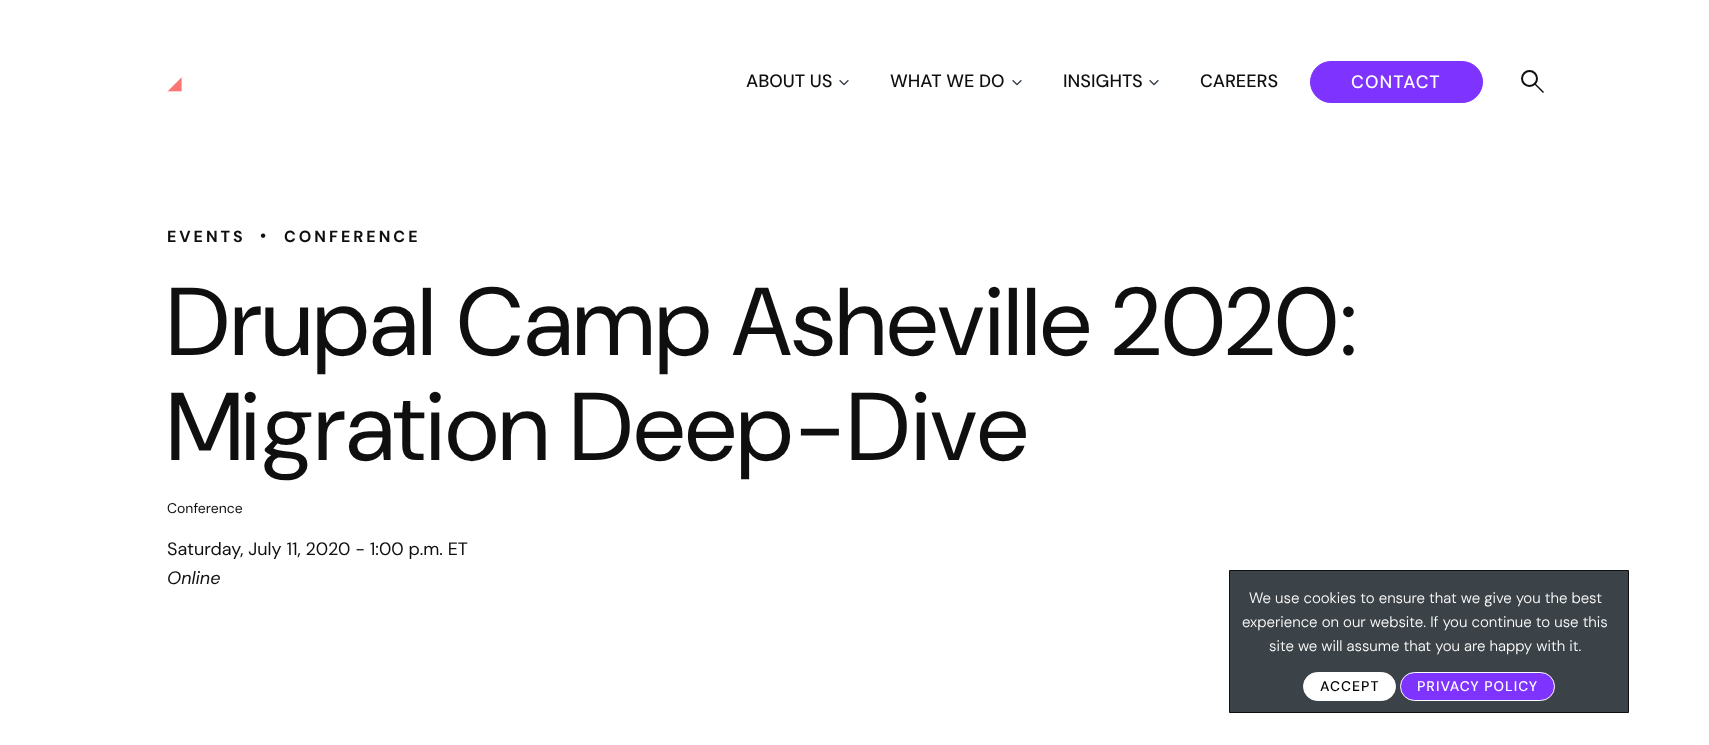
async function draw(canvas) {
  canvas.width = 1709;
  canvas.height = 745;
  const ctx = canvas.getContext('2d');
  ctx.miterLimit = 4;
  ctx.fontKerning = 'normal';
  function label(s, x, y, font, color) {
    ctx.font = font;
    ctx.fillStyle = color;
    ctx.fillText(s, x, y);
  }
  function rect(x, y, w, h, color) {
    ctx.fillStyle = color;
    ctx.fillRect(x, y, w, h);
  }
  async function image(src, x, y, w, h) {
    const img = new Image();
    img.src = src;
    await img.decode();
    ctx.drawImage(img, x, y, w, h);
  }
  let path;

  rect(0, 0, 1709, 745, '#fff');
  await image('assets/img1.png', 167, 77, 15, 15);
  label('ABOUT US', 746, 87, '500 18px DM Sans', '#0f0f0f');
  await image('assets/img2.png', 839, 80, 10, 6);
  label('WHAT WE DO', 890, 87, '500 18px DM Sans', '#0f0f0f');
  await image('assets/img2.png', 1012, 80, 10, 6);
  label('INSIGHTS', 1063, 87, '500 18px DM Sans', '#0f0f0f');
  await image('assets/img2.png', 1149, 80, 10, 6);
  label('CAREERS', 1200, 87, '500 18px DM Sans', '#0f0f0f');
  ctx.fillStyle = '#7e33ff';
  ctx.beginPath();
  ctx.roundRect(1310.5, 61.5, 172, 41, 20.5);
  ctx.fill();
  ctx.strokeStyle = '#7e33ff';
  ctx.stroke();
  ctx.letterSpacing = '1px';
  label('CONTACT', 1351, 88, '500 18px DM Sans', '#fff');
  ctx.beginPath();
  ctx.arc(1529.5, 78.5, 7.5, 0, 2 * Math.PI);
  ctx.strokeStyle = '#0f0f0f';
  ctx.lineWidth = 2;
  ctx.stroke();
  ctx.fillStyle = '#0f0f0f';
  path = new Path2D('M1535.5 83.5L1544 92L1543 93L1534.5 84.5Z');
  ctx.fill(path);
  ctx.letterSpacing = '3px';
  label('EVENTS', 167, 242, 'bold 16px DM Sans', '#0f0f0f');
  label('•', 260, 241, 'bold 16px DM Sans', '#0f0f0f');
  label('CONFERENCE', 284, 242, 'bold 16px DM Sans', '#0f0f0f');
  ctx.letterSpacing = '1px';
  label('Drupal Camp Asheville 2020:', 167, 355, '96px "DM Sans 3"', '#0f0f0f');
  label('Migration Deep-Dive', 167, 460, '96px "DM Sans 3"', '#0f0f0f');
  ctx.letterSpacing = '0px';
  label('Conference', 167, 513, '14px DM Sans', '#0f0f0f');
  label('Saturday, July 11, 2020 - 1:00 p.m. ET', 167, 555, '18px "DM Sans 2"', '#0f0f0f');
  label('Online', 167, 584, 'italic 18px DM Sans', '#0f0f0f');
  ctx.fillStyle = '#3c4348';
  ctx.beginPath();
  ctx.rect(1229.5, 570.5, 399, 142);
  ctx.fill();
  ctx.lineWidth = 1;
  ctx.stroke();
  label('We use cookies to ensure that we give you the best', 1249, 603, '300 15px DM Sans', '#fff');
  label('experience on our website. If you continue to use this', 1242, 627, '300 15px DM Sans', '#fff');
  label('site we will assume that you are happy with it.', 1269, 651, '300 15px DM Sans', '#fff');
  ctx.beginPath();
  ctx.roundRect(1303.5, 672.5, 92, 28, 14);
  ctx.fill();
  ctx.strokeStyle = '#fff';
  ctx.stroke();
  ctx.letterSpacing = '1px';
  label('ACCEPT', 1320, 691, '500 14px DM Sans', '#000');
  ctx.fillStyle = '#7e33ff';
  ctx.beginPath();
  ctx.roundRect(1400.5, 672.5, 154, 28, 14);
  ctx.fill();
  ctx.stroke();
  label('PRIVACY POLICY', 1417, 691, '500 14px DM Sans', '#fff');
}

draw(document.querySelector('canvas'));
